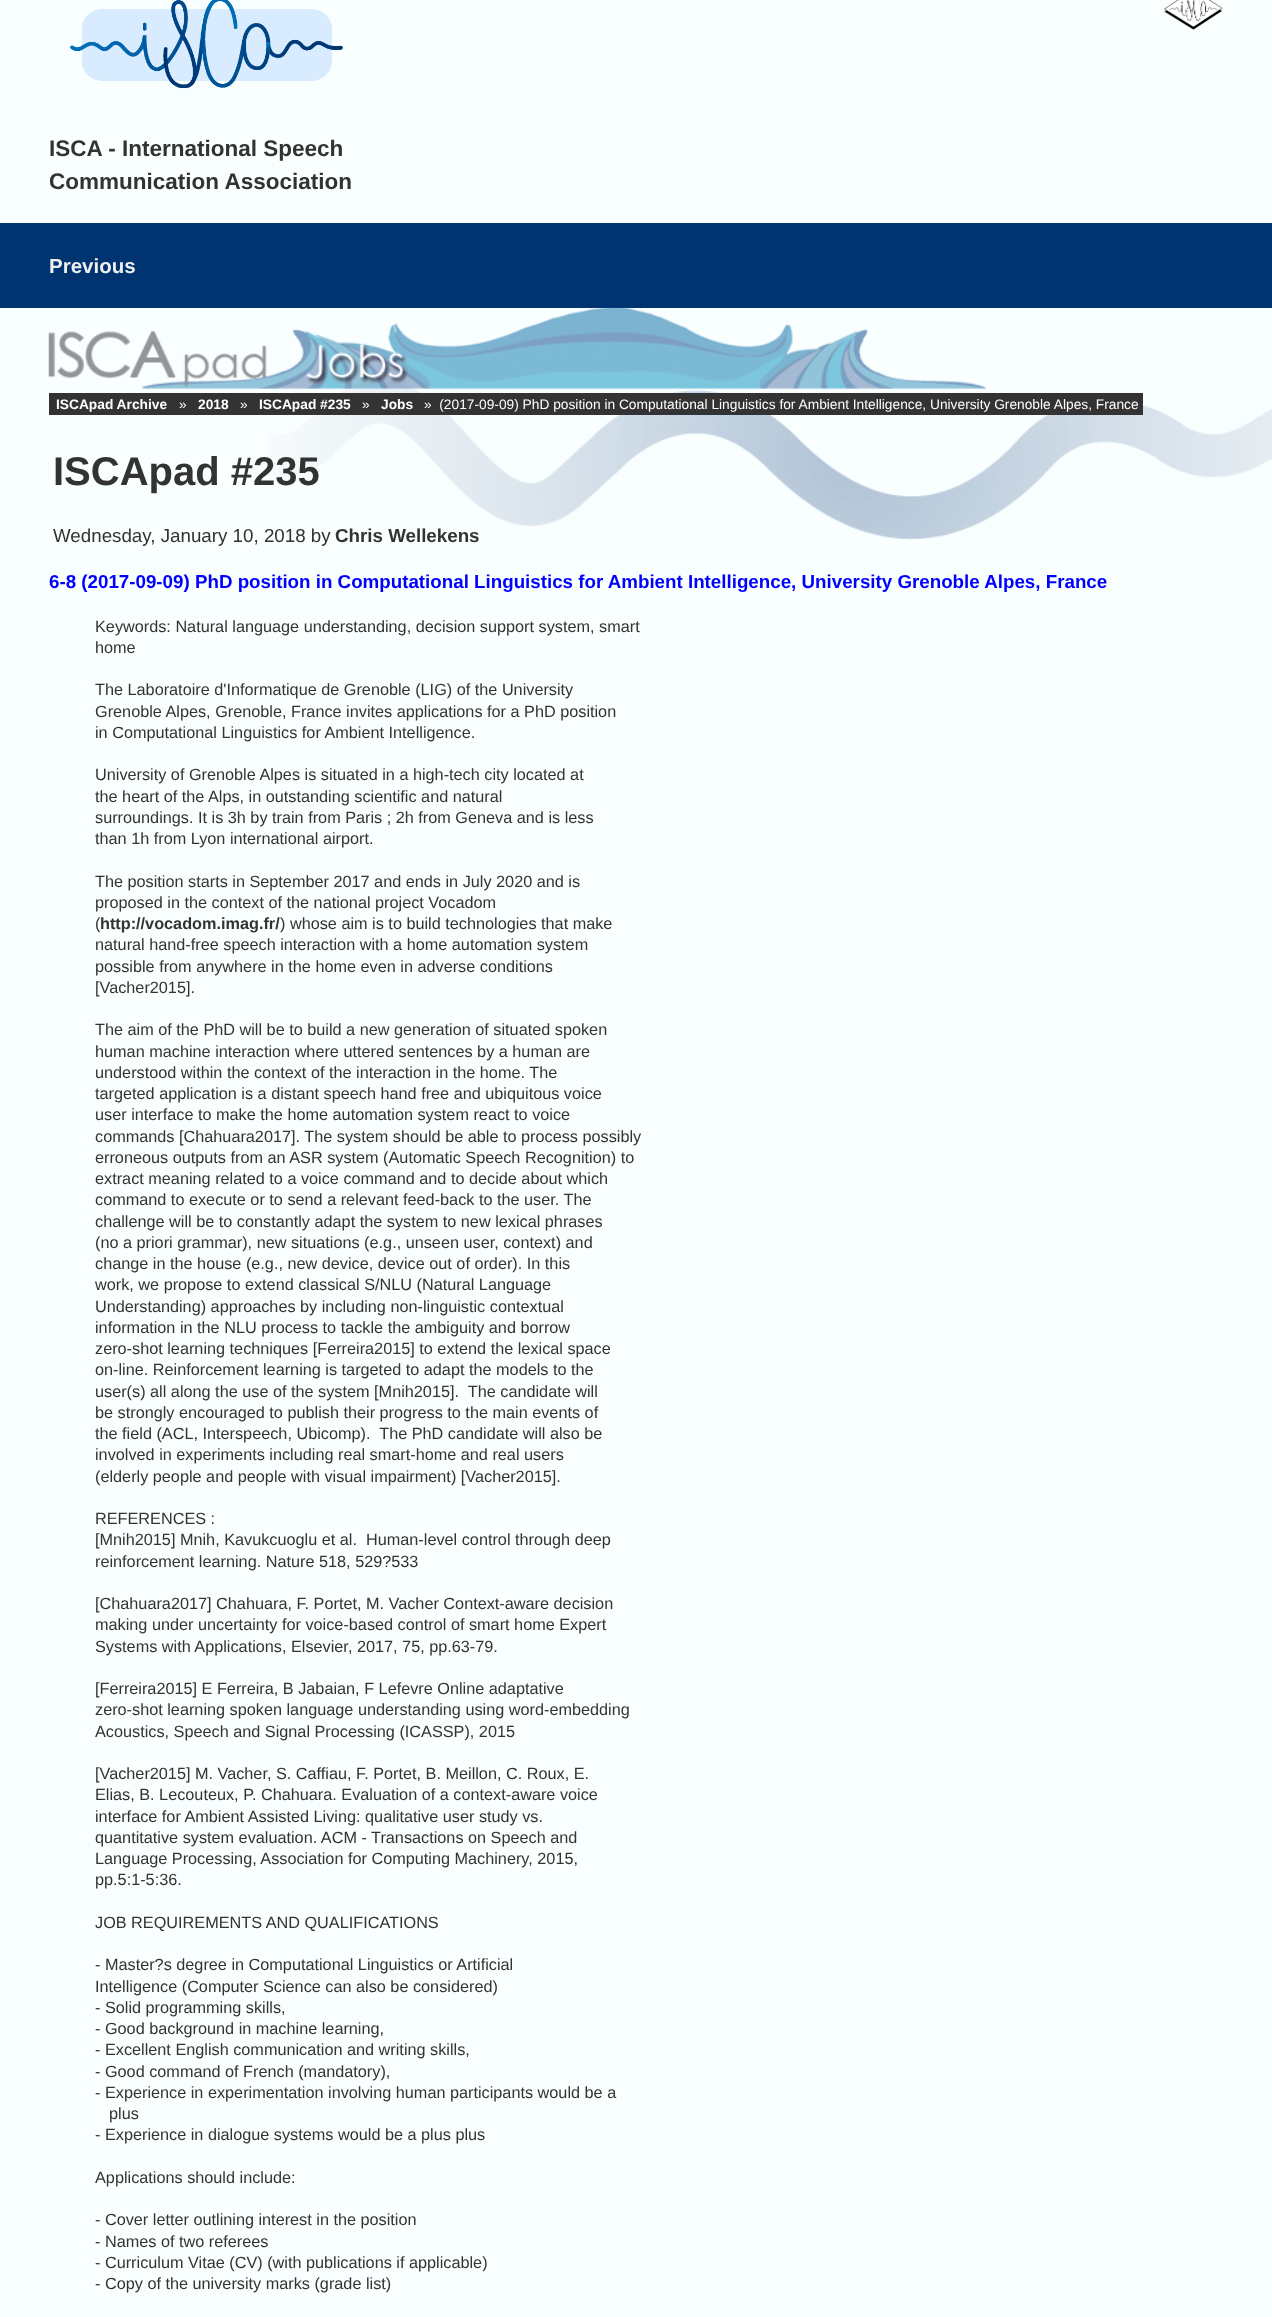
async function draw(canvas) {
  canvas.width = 1272;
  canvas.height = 2317;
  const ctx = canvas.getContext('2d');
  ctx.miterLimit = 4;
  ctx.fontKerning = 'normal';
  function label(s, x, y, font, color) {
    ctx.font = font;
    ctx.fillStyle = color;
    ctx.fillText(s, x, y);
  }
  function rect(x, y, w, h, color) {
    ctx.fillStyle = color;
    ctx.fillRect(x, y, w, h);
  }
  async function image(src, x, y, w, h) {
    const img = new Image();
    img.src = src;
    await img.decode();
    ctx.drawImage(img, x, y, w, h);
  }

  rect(0, 0, 1272, 2317, '#f9feff');
  await image('assets/img1.png', 268, 380, 1004, 160);
  await image('assets/img2.png', 1163, 0, 60, 30);
  await image('assets/img3.png', 70, 0, 273, 89);
  label('ISCA - International Speech', 49, 156, 'bold 22.5px Liberation Sans', '#333');
  label('Communication Association', 49, 189, 'bold 22.5px Liberation Sans', '#333');
  rect(0, 223, 1272, 85, '#003471');
  label('Previous', 49, 273, 'bold 20.5px Liberation Sans', '#efefef');
  await image('assets/img4.png', 48, 307, 938, 82);
  rect(49, 393, 1094, 22, '#333');
  label('ISCApad Archive', 56, 409, 'bold 13.75px Liberation Sans', '#fff');
  label('»', 179, 409, '13.75px Liberation Sans', '#fff');
  label('2018', 198, 409, 'bold 13.75px Liberation Sans', '#fff');
  label('»', 240, 409, '13.75px Liberation Sans', '#fff');
  label('ISCApad #235', 259, 409, 'bold 13.75px Liberation Sans', '#fff');
  label('»', 362, 409, '13.75px Liberation Sans', '#fff');
  label('Jobs', 381, 409, 'bold 13.75px Liberation Sans', '#fff');
  label('»  (2017-09-09) PhD position in Computational Linguistics for Ambient Intelligence, University Grenoble Alpes, France', 424, 409, '13.75px Liberation Sans', '#fff');
  label('ISCApad #235', 53, 485, 'bold 40px Liberation Sans', '#333');
  label('Wednesday, January 10, 2018 by', 53, 542, '18.75px Liberation Sans', '#333');
  label('Chris Wellekens', 335, 542, 'bold 18.75px Liberation Sans', '#333');
  label('6-8 (2017-09-09) PhD position in Computational Linguistics for Ambient Intelligence, University Grenoble Alpes, France', 49, 588, 'bold 18.75px Liberation Sans', '#00f');
  label('Keywords: Natural language understanding, decision support system, smart', 95, 632, '16.25px Liberation Sans', '#333');
  label('home', 95, 653, '16.25px Liberation Sans', '#333');
  label('The Laboratoire d\'Informatique de Grenoble (LIG) of the University', 95, 695, '16.25px Liberation Sans', '#333');
  label('Grenoble Alpes, Grenoble, France invites applications for a PhD position', 95, 717, '16.25px Liberation Sans', '#333');
  label('in Computational Linguistics for Ambient Intelligence.', 95, 738, '16.25px Liberation Sans', '#333');
  label('University of Grenoble Alpes is situated in a high-tech city located at', 95, 780, '16.25px Liberation Sans', '#333');
  label('the heart of the Alps, in outstanding scientific and natural', 95, 802, '16.25px Liberation Sans', '#333');
  label('surroundings. It is 3h by train from Paris ; 2h from Geneva and is less', 95, 823, '16.25px Liberation Sans', '#333');
  label('than 1h from Lyon international airport.', 95, 844, '16.25px Liberation Sans', '#333');
  label('The position starts in September 2017 and ends in July 2020 and is', 95, 887, '16.25px Liberation Sans', '#333');
  label('proposed in the context of the national project Vocadom', 95, 908, '16.25px Liberation Sans', '#333');
  label('(', 95, 929, '16.25px Liberation Sans', '#333');
  label('http://vocadom.imag.fr/', 100, 929, 'bold 16.25px Liberation Sans', '#333');
  label(') whose aim is to build technologies that make', 280, 929, '16.25px Liberation Sans', '#333');
  label('natural hand-free speech interaction with a home automation system', 95, 950, '16.25px Liberation Sans', '#333');
  label('possible from anywhere in the home even in adverse conditions', 95, 972, '16.25px Liberation Sans', '#333');
  label('[Vacher2015].', 95, 993, '16.25px Liberation Sans', '#333');
  label('The aim of the PhD will be to build a new generation of situated spoken', 95, 1035, '16.25px Liberation Sans', '#333');
  label('human machine interaction where uttered sentences by a human are', 95, 1057, '16.25px Liberation Sans', '#333');
  label('understood within the context of the interaction in the home. The', 95, 1078, '16.25px Liberation Sans', '#333');
  label('targeted application is a distant speech hand free and ubiquitous voice', 95, 1099, '16.25px Liberation Sans', '#333');
  label('user interface to make the home automation system react to voice', 95, 1120, '16.25px Liberation Sans', '#333');
  label('commands [Chahuara2017]. The system should be able to process possibly', 95, 1142, '16.25px Liberation Sans', '#333');
  label('erroneous outputs from an ASR system (Automatic Speech Recognition) to', 95, 1163, '16.25px Liberation Sans', '#333');
  label('extract meaning related to a voice command and to decide about which', 95, 1184, '16.25px Liberation Sans', '#333');
  label('command to execute or to send a relevant feed-back to the user. The', 95, 1205, '16.25px Liberation Sans', '#333');
  label('challenge will be to constantly adapt the system to new lexical phrases', 95, 1227, '16.25px Liberation Sans', '#333');
  label('(no a priori grammar), new situations (e.g., unseen user, context) and', 95, 1248, '16.25px Liberation Sans', '#333');
  label('change in the house (e.g., new device, device out of order). In this', 95, 1269, '16.25px Liberation Sans', '#333');
  label('work, we propose to extend classical S/NLU (Natural Language', 95, 1290, '16.25px Liberation Sans', '#333');
  label('Understanding) approaches by including non-linguistic contextual', 95, 1312, '16.25px Liberation Sans', '#333');
  label('information in the NLU process to tackle the ambiguity and borrow', 95, 1333, '16.25px Liberation Sans', '#333');
  label('zero-shot learning techniques [Ferreira2015] to extend the lexical space', 95, 1354, '16.25px Liberation Sans', '#333');
  label('on-line. Reinforcement learning is targeted to adapt the models to the', 95, 1375, '16.25px Liberation Sans', '#333');
  label('user(s) all along the use of the system [Mnih2015].  The candidate will', 95, 1397, '16.25px Liberation Sans', '#333');
  label('be strongly encouraged to publish their progress to the main events of', 95, 1418, '16.25px Liberation Sans', '#333');
  label('the field (ACL, Interspeech, Ubicomp).  The PhD candidate will also be', 95, 1439, '16.25px Liberation Sans', '#333');
  label('involved in experiments including real smart-home and real users', 95, 1460, '16.25px Liberation Sans', '#333');
  label('(elderly people and people with visual impairment) [Vacher2015].', 95, 1482, '16.25px Liberation Sans', '#333');
  label('REFERENCES :', 95, 1524, '16.25px Liberation Sans', '#333');
  label('[Mnih2015] Mnih, Kavukcuoglu et al.  Human-level control through deep', 95, 1545, '16.25px Liberation Sans', '#333');
  label('reinforcement learning. Nature 518, 529?533', 95, 1567, '16.25px Liberation Sans', '#333');
  label('[Chahuara2017] Chahuara, F. Portet, M. Vacher Context-aware decision', 95, 1609, '16.25px Liberation Sans', '#333');
  label('making under uncertainty for voice-based control of smart home Expert', 95, 1630, '16.25px Liberation Sans', '#333');
  label('Systems with Applications, Elsevier, 2017, 75, pp.63-79.', 95, 1652, '16.25px Liberation Sans', '#333');
  label('[Ferreira2015] E Ferreira, B Jabaian, F Lefevre Online adaptative', 95, 1694, '16.25px Liberation Sans', '#333');
  label('zero-shot learning spoken language understanding using word-embedding', 95, 1715, '16.25px Liberation Sans', '#333');
  label('Acoustics, Speech and Signal Processing (ICASSP), 2015', 95, 1737, '16.25px Liberation Sans', '#333');
  label('[Vacher2015] M. Vacher, S. Caffiau, F. Portet, B. Meillon, C. Roux, E.', 95, 1779, '16.25px Liberation Sans', '#333');
  label('Elias, B. Lecouteux, P. Chahuara. Evaluation of a context-aware voice', 95, 1800, '16.25px Liberation Sans', '#333');
  label('interface for Ambient Assisted Living: qualitative user study vs.', 95, 1822, '16.25px Liberation Sans', '#333');
  label('quantitative system evaluation. ACM - Transactions on Speech and', 95, 1843, '16.25px Liberation Sans', '#333');
  label('Language Processing, Association for Computing Machinery, 2015,', 95, 1864, '16.25px Liberation Sans', '#333');
  label('pp.5:1-5:36.', 95, 1885, '16.25px Liberation Sans', '#333');
  label('JOB REQUIREMENTS AND QUALIFICATIONS', 95, 1928, '16.25px Liberation Sans', '#333');
  label('- Master?s degree in Computational Linguistics or Artificial', 95, 1970, '16.25px Liberation Sans', '#333');
  label('Intelligence (Computer Science can also be considered)', 95, 1992, '16.25px Liberation Sans', '#333');
  label('- Solid programming skills,', 95, 2013, '16.25px Liberation Sans', '#333');
  label('- Good background in machine learning,', 95, 2034, '16.25px Liberation Sans', '#333');
  label('- Excellent English communication and writing skills,', 95, 2055, '16.25px Liberation Sans', '#333');
  label('- Good command of French (mandatory),', 95, 2077, '16.25px Liberation Sans', '#333');
  label('- Experience in experimentation involving human participants would be a', 95, 2098, '16.25px Liberation Sans', '#333');
  label('plus', 109, 2119, '16.25px Liberation Sans', '#333');
  label('- Experience in dialogue systems would be a plus plus', 95, 2140, '16.25px Liberation Sans', '#333');
  label('Applications should include:', 95, 2183, '16.25px Liberation Sans', '#333');
  label('- Cover letter outlining interest in the position', 95, 2225, '16.25px Liberation Sans', '#333');
  label('- Names of two referees', 95, 2247, '16.25px Liberation Sans', '#333');
  label('- Curriculum Vitae (CV) (with publications if applicable)', 95, 2268, '16.25px Liberation Sans', '#333');
  label('- Copy of the university marks (grade list)', 95, 2289, '16.25px Liberation Sans', '#333');
}

draw(document.querySelector('canvas'));
